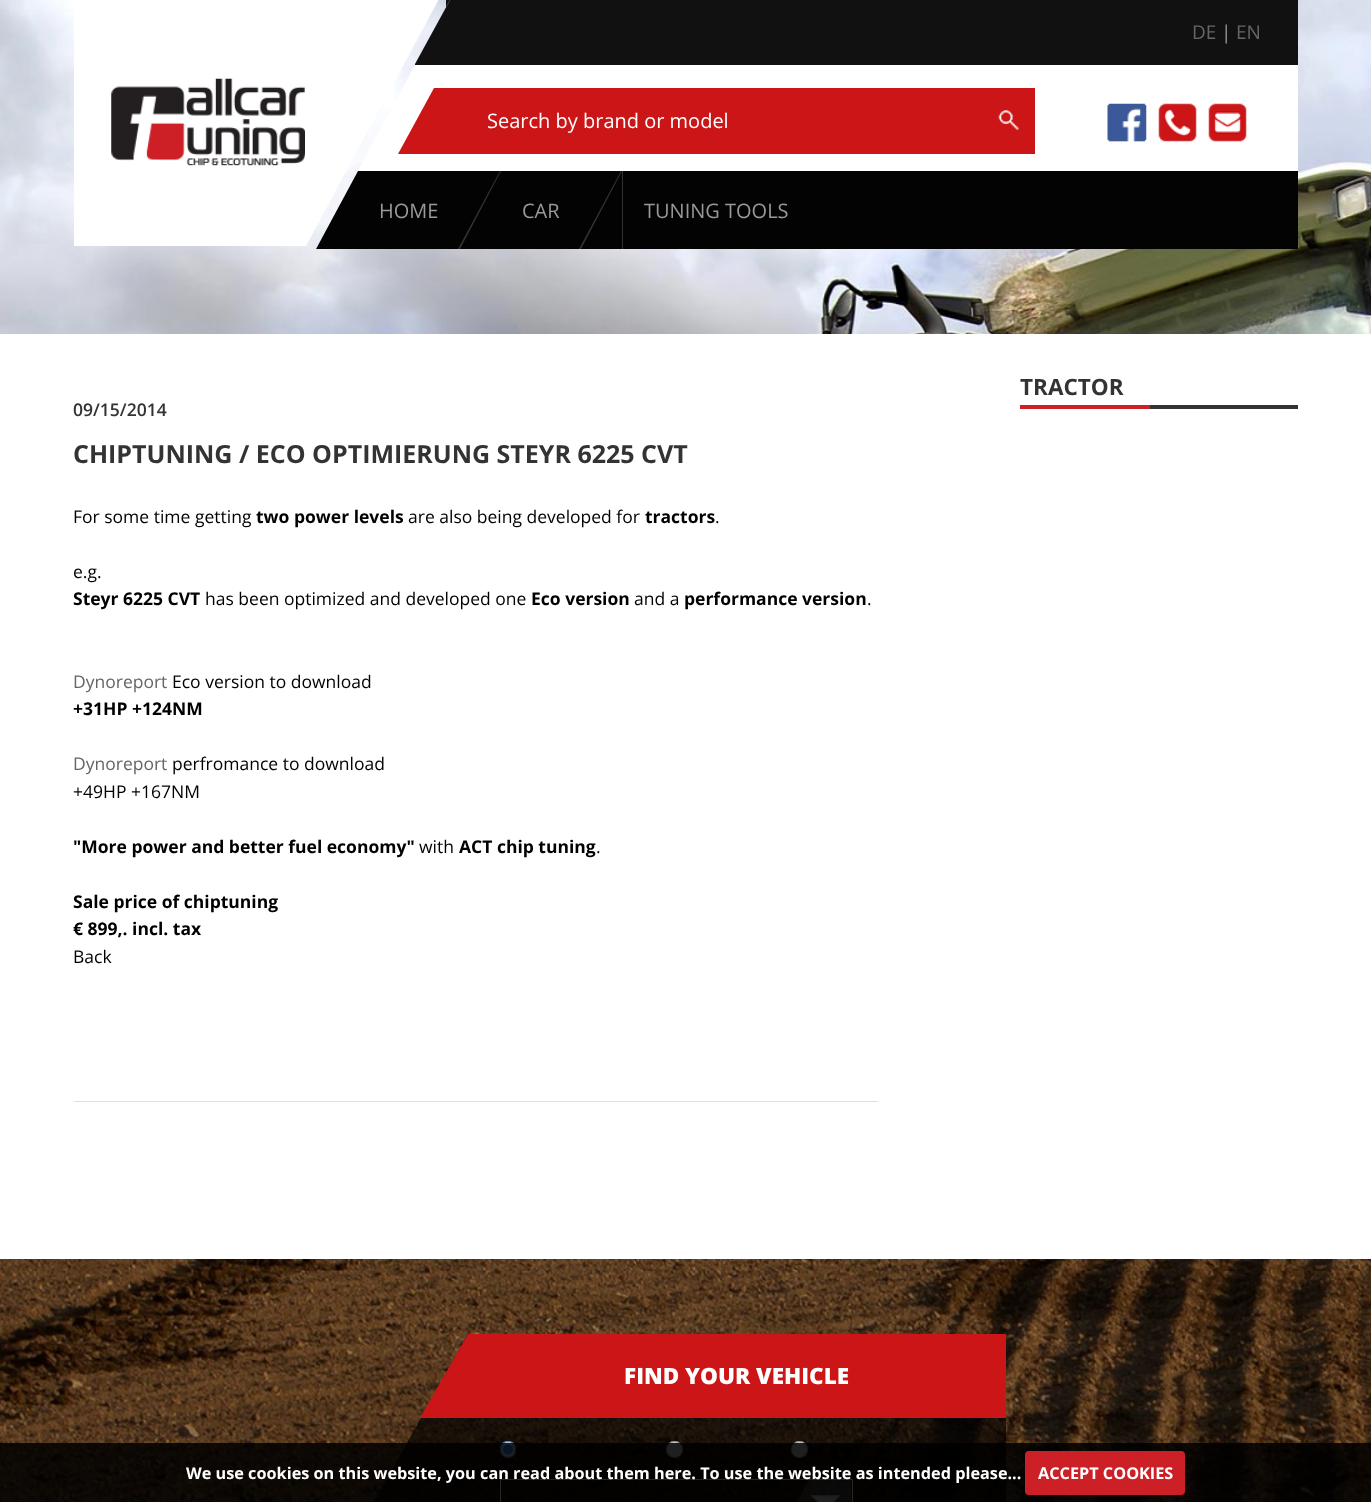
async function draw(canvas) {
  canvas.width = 1371;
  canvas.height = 1502;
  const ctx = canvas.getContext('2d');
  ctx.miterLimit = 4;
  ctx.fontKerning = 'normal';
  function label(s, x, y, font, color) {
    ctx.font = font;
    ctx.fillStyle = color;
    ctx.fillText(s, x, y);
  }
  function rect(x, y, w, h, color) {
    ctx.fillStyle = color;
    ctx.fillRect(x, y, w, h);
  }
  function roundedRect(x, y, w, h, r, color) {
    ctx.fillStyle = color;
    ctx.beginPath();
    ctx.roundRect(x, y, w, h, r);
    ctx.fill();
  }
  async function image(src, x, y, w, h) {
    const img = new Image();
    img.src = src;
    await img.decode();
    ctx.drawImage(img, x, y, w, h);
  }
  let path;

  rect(0, 0, 1371, 1502, '#fff');
  await image('assets/img1.png', 0, 0, 1371, 334);
  rect(74, 0, 231, 246, '#fff');
  await image('assets/img2.png', 111, 78, 194, 88);
  path = new Path2D('M305-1H439L306 246H305Z');
  ctx.fill(path);
  rect(446, 0, 852, 65, '#111');
  ctx.fillStyle = '#fff';
  path = new Path2D('M450 0V248H316Z');
  ctx.fill(path);
  ctx.fillStyle = '#111';
  path = new Path2D('M450 0V65H415V64Z');
  ctx.fill(path);
  label('DE', 1192, 39, '19px Open Sans', '#666');
  label('|', 1221, 39, '19px Open Sans', '#999');
  label('EN', 1236, 39, '19px Open Sans', '#666');
  rect(450, 65, 848, 106, '#fff');
  rect(434, 88, 601, 66, '#cb1517');
  path = new Path2D('M434 88V154H398Z');
  ctx.fill(path);
  label('Search by brand or model', 487, 128, '20px Open Sans', '#fff');
  await image('assets/img3.png', 998, 110, 21, 20);
  await image('assets/img4.png', 1107, 103, 40, 39);
  await image('assets/img5.png', 1158, 103, 39, 39);
  await image('assets/img6.png', 1208, 103, 39, 39);
  rect(358, 171, 940, 78, '#030303');
  path = new Path2D('M358 171V249H316Z');
  ctx.fill(path);
  label('HOME', 379, 218, '20px Open Sans', '#999');
  rect(458, 171, 43, 78, '#333');
  ctx.fillStyle = '#030303';
  path = new Path2D('M501 171V249H460Z');
  ctx.fill(path);
  path = new Path2D('M458 171H500L458 249Z');
  ctx.fill(path);
  label('CAR', 522, 218, '20px Open Sans', '#999');
  rect(579, 171, 44, 78, '#333');
  ctx.fillStyle = '#030303';
  path = new Path2D('M622 171V249H581Z');
  ctx.fill(path);
  path = new Path2D('M579 171H621L579 249Z');
  ctx.fill(path);
  label('TUNING TOOLS', 644, 218, '20px Open Sans', '#999');
  label('TRACTOR', 1020, 395, 'bold 22.5px Open Sans', '#333');
  rect(1020, 405, 130, 4, '#cd2026');
  rect(1150, 405, 148, 4, '#333');
  rect(74, 1101, 804, 1, '#e0e0e0');
  label('09/15/2014', 73, 416, '600 17.5px Open Sans', '#333');
  label('CHIPTUNING / ECO OPTIMIERUNG STEYR 6225 CVT', 73, 463, 'bold 25px Open Sans', '#333');
  label('For some time getting', 73, 523, '17.5px Open Sans', '#000');
  label('two power levels', 256, 523, 'bold 17.5px Open Sans', '#000');
  label('are also being developed for', 408, 523, '17.5px Open Sans', '#000');
  label('tractors', 645, 523, 'bold 17.5px Open Sans', '#000');
  label('.', 715, 523, '17.5px Open Sans', '#000');
  label('e.g.', 73, 578, '17.5px Open Sans', '#000');
  label('Steyr 6225 CVT', 73, 605, 'bold 17.5px Open Sans', '#000');
  label('has been optimized and developed one', 205, 605, '17.5px Open Sans', '#000');
  label('Eco version', 531, 605, 'bold 17.5px Open Sans', '#000');
  label('and a', 634, 605, '17.5px Open Sans', '#000');
  label('performance version', 684, 605, 'bold 17.5px Open Sans', '#000');
  label('.', 867, 605, '17.5px Open Sans', '#000');
  label('Dynoreport', 73, 688, '17.5px Open Sans', '#666');
  label('Eco version to download', 172, 688, '17.5px Open Sans', '#000');
  label('+31HP +124NM', 73, 715, 'bold 17.5px Open Sans', '#000');
  label('Dynoreport', 73, 770, '17.5px Open Sans', '#666');
  label('perfromance to download', 172, 770, '17.5px Open Sans', '#000');
  label('+49HP +167NM', 73, 798, '17.5px Open Sans', '#000');
  label('"More power and better fuel economy"', 73, 853, 'bold 17.5px Open Sans', '#000');
  label('with', 419, 853, '17.5px Open Sans', '#000');
  label('ACT chip tuning', 459, 853, 'bold 17.5px Open Sans', '#000');
  label('.', 596, 853, '17.5px Open Sans', '#000');
  label('Sale price of chiptuning', 73, 908, 'bold 17.5px Open Sans', '#000');
  label('€ 899,. incl. tax', 73, 935, 'bold 17.5px Open Sans', '#000');
  label('Back', 73, 963, '17.5px Open Sans', '#000');
  await image('assets/img7.png', 0, 1259, 1371, 243);
  rect(468, 1418, 538, 84, '#000000b3');
  path = new Path2D('M468 1334V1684H272Z');
  ctx.fill(path);
  rect(468, 1334, 538, 84, '#cb1517');
  path = new Path2D('M468 1334V1418H420Z');
  ctx.fill(path);
  label('FIND YOUR VEHICLE', 624, 1384, '800 22.5px Open Sans', '#fff');
  roundedRect(500, 1441, 16, 17, 8, '#ffffffcc');
  ctx.beginPath();
  ctx.roundRect(500.5, 1441.5, 15, 16, 7.5);
  ctx.strokeStyle = '#0075ffcc';
  ctx.stroke();
  ctx.fillStyle = '#0075ffcc';
  ctx.beginPath();
  ctx.arc(508, 1449.5, 5, 0, 2 * Math.PI);
  ctx.fill();
  ctx.fillStyle = '#ffffffcc';
  ctx.beginPath();
  ctx.arc(674.5, 1449.5, 8.5, 0, 2 * Math.PI);
  ctx.fill();
  ctx.beginPath();
  ctx.arc(674.5, 1449.5, 8, 0, 2 * Math.PI);
  ctx.strokeStyle = '#767676cc';
  ctx.stroke();
  ctx.beginPath();
  ctx.arc(799.5, 1449.5, 8.5, 0, 2 * Math.PI);
  ctx.fill();
  ctx.beginPath();
  ctx.arc(799.5, 1449.5, 8, 0, 2 * Math.PI);
  ctx.stroke();
  await image('assets/img8.png', 796, 1480, 56, 22);
  ctx.strokeStyle = '#fff';
  ctx.strokeRect(500.5, 1479.5, 352, 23);
  rect(0, 1443, 1371, 59, '#000000d9');
  label('We use cookies on this website, you can read about them here. To use the website as intended please...', 186, 1479, 'bold 16.25px Open Sans', '#fff');
  roundedRect(1025, 1451, 160, 44, 4, '#cd2026');
  label('ACCEPT COOKIES', 1038, 1479, 'bold 16.25px Open Sans', '#fff');
}

draw(document.querySelector('canvas'));
